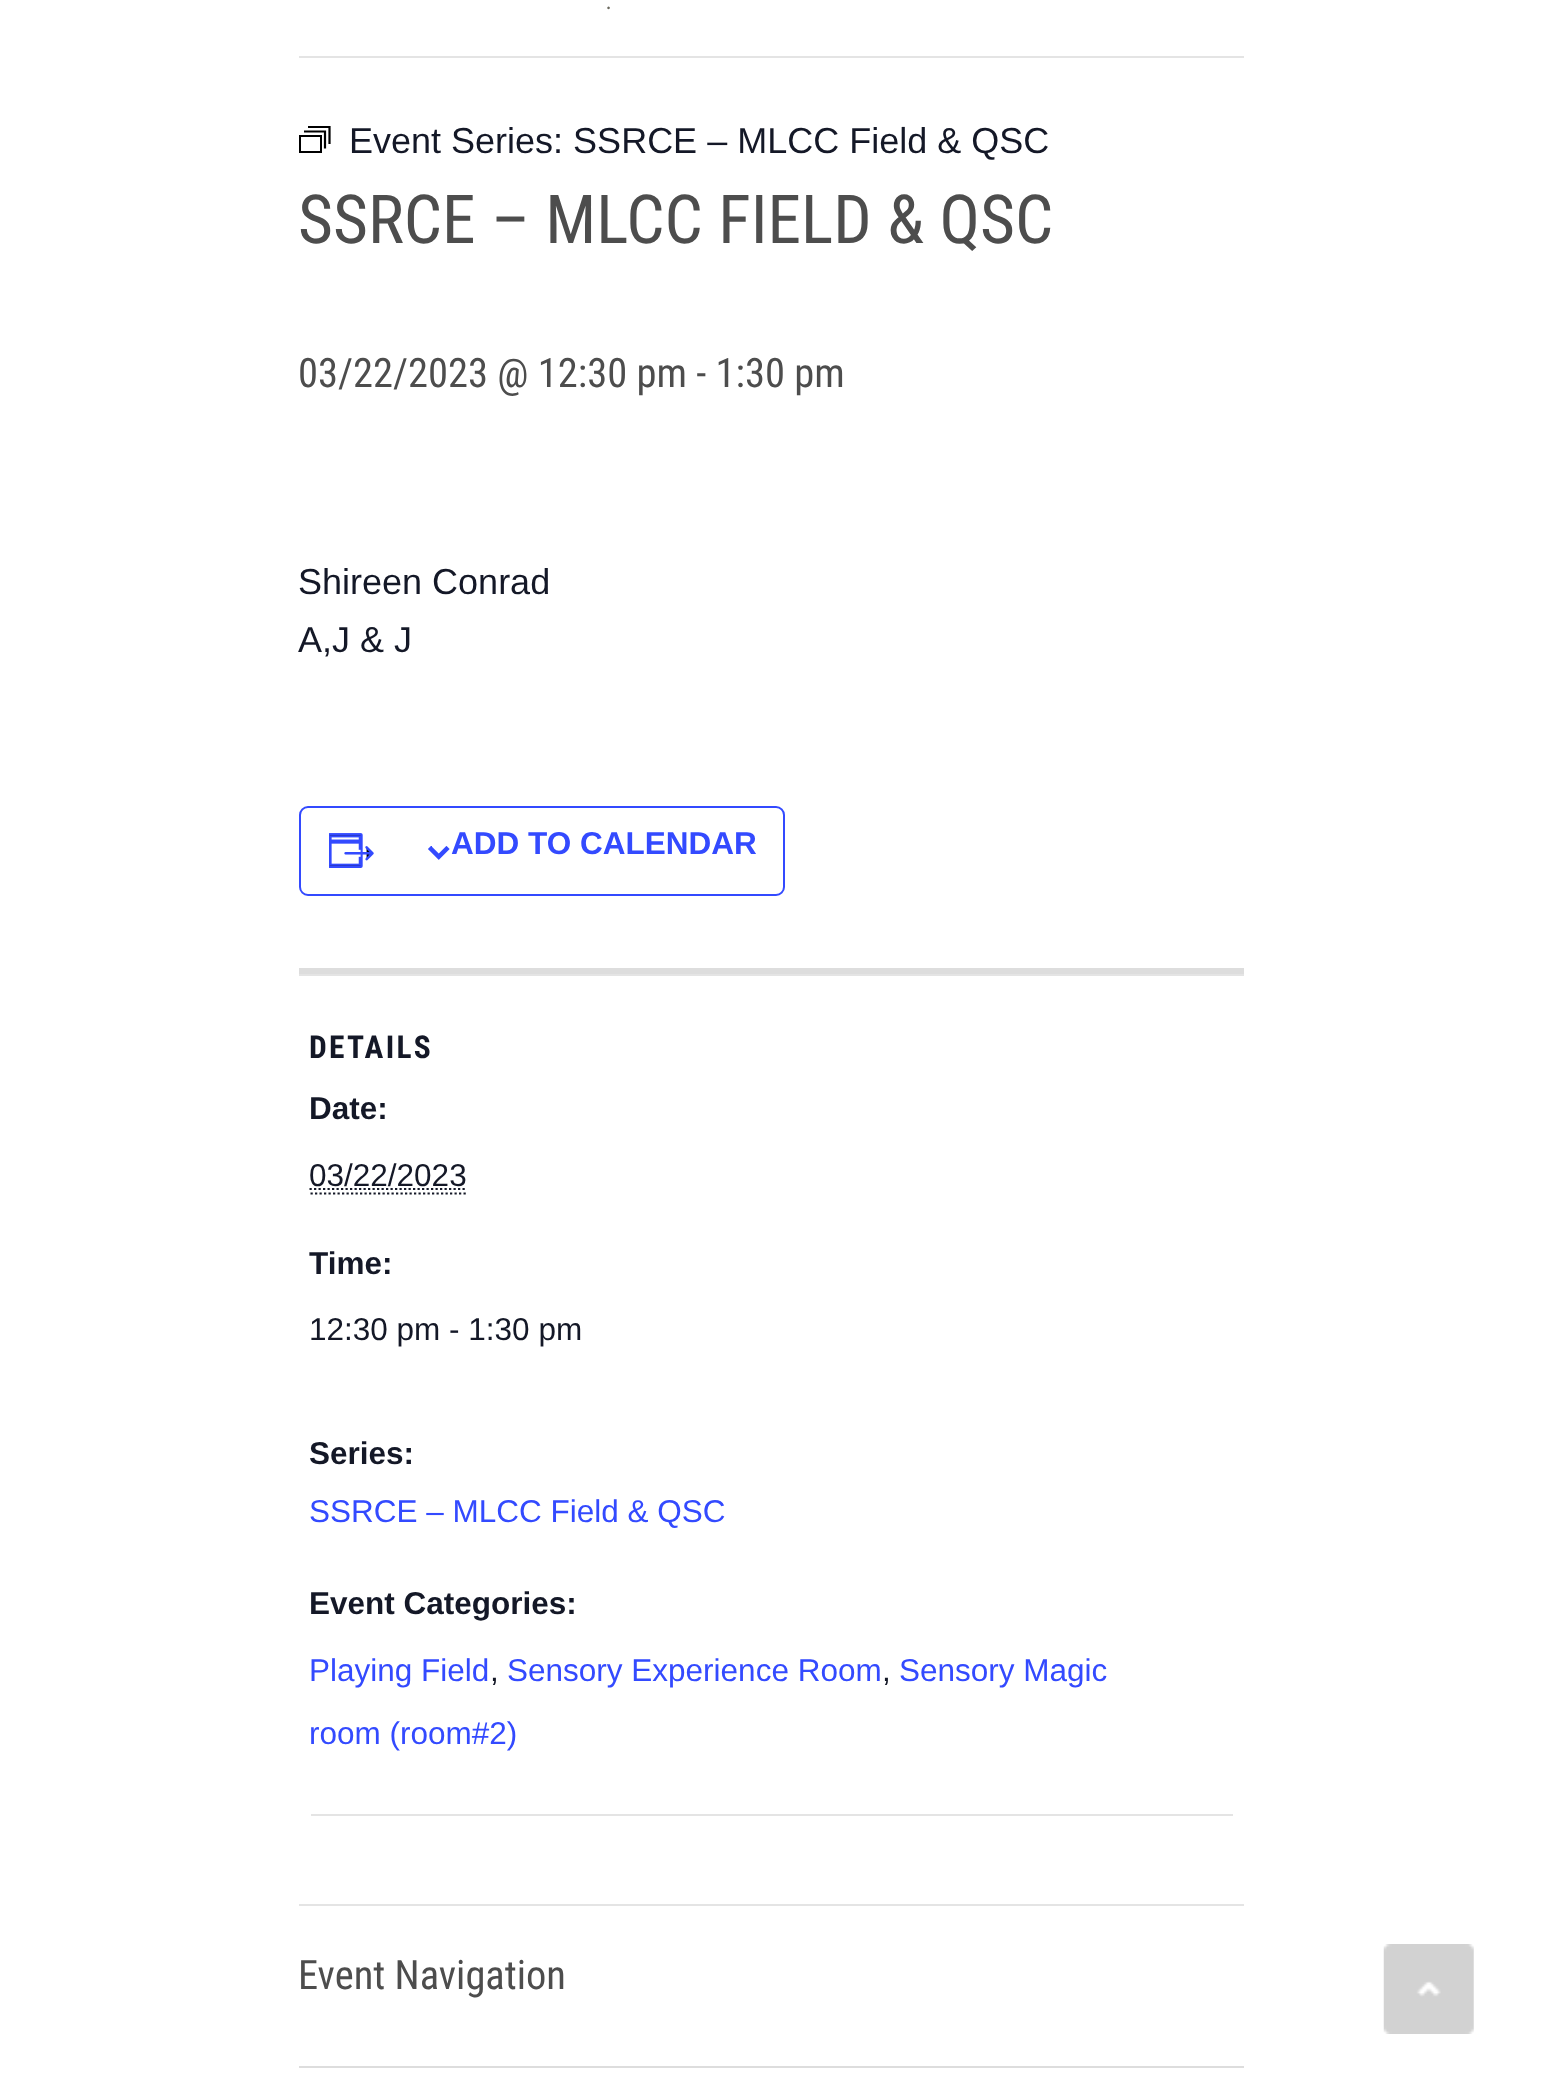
async function draw(canvas) {
  canvas.width = 1541;
  canvas.height = 2100;
  const ctx = canvas.getContext('2d');
  ctx.miterLimit = 4;
  ctx.fontKerning = 'normal';
  function label(s, x, y, font, color) {
    ctx.font = font;
    ctx.fillStyle = color;
    ctx.fillText(s, x, y);
  }
  function rect(x, y, w, h, color) {
    ctx.fillStyle = color;
    ctx.fillRect(x, y, w, h);
  }
  async function image(src, x, y, w, h) {
    const img = new Image();
    img.src = src;
    await img.decode();
    ctx.drawImage(img, x, y, w, h);
  }
  let path;

  rect(0, 0, 1541, 2100, '#fff');
  rect(299, 56, 945, 2, '#e4e4e4');
  label('.', 605, 9, '300 31.5px Roboto', '#6a695e');
  ctx.strokeStyle = '#000';
  ctx.lineWidth = 2;
  ctx.strokeRect(300, 136, 21, 16);
  path = new Path2D('M304 131.5H325V148.5');
  ctx.lineWidth = 2.2;
  ctx.stroke(path);
  ctx.save();
  ctx.beginPath();
  ctx.rect(299, 126, 32, 27);
  ctx.clip();
  path = new Path2D('M308 127H329.5V144');
  ctx.stroke(path);
  ctx.restore();
  label('Event Series: SSRCE – MLCC Field & QSC', 349, 153, '36px Liberation Sans', '#141827');
  label('SSRCE – MLCC FIELD & QSC', 298, 243, '67.5px Roboto Condensed', '#4d4d4d');
  label('03/22/2023 @ 12:30 pm - 1:30 pm', 298, 387, '40.5px Roboto Condensed', '#4d4d4d');
  label('Shireen Conrad', 298, 594, '36px Liberation Sans', '#141827');
  label('A,J & J', 298, 652, '36px Liberation Sans', '#141827');
  ctx.beginPath();
  ctx.roundRect(300, 807, 484, 88, 8);
  ctx.strokeStyle = '#334aff';
  ctx.lineWidth = 2;
  ctx.stroke();
  await image('assets/img1.png', 329, 833, 45, 35);
  await image('assets/img2.png', 428, 846, 22, 14);
  label('ADD TO CALENDAR', 451, 854, 'bold 31.5px Liberation Sans', '#334aff');
  rect(299, 968, 945, 6, '#ddd');
  rect(299, 974, 945, 2, '#e4e4e4');
  ctx.letterSpacing = '2.25px';
  label('DETAILS', 309, 1058, 'bold 31.5px Roboto Condensed', '#141827');
  ctx.letterSpacing = '0px';
  label('Date:', 309, 1119, 'bold 31.5px Liberation Sans', '#141827');
  label('03/22/2023', 309, 1186, '31.5px Liberation Sans', '#141827');
  path = new Path2D('M310.5 1193.5H468');
  ctx.strokeStyle = '#141827';
  ctx.lineWidth = 2.2;
  ctx.setLineDash([2.25, 2.25]);
  ctx.stroke(path);
  path = new Path2D('M309.5 1189H467');
  ctx.stroke(path);
  label('Time:', 309, 1274, 'bold 31.5px Liberation Sans', '#141827');
  label('12:30 pm - 1:30 pm', 309, 1340, '31.5px Liberation Sans', '#141827');
  label('Series:', 309, 1464, 'bold 31.5px Liberation Sans', '#141827');
  label('SSRCE – MLCC Field & QSC', 309, 1522, '31.5px Liberation Sans', '#334aff');
  label('Event Categories:', 309, 1614, 'bold 31.5px Liberation Sans', '#141827');
  label('Playing Field', 309, 1681, '31.5px Liberation Sans', '#334aff');
  label(',', 490, 1681, '31.5px Liberation Sans', '#141827');
  label('Sensory Experience Room', 507, 1681, '31.5px Liberation Sans', '#334aff');
  label(',', 882, 1681, '31.5px Liberation Sans', '#141827');
  label('Sensory Magic', 899, 1681, '31.5px Liberation Sans', '#334aff');
  label('room (room#2)', 309, 1744, '31.5px Liberation Sans', '#334aff');
  rect(311, 1814, 922, 2, '#e4e4e4');
  rect(299, 1904, 945, 2, '#e4e4e4');
  label('Event Navigation', 298, 1989, '40.5px Roboto Condensed', '#4d4d4d');
  rect(299, 2066, 945, 2, '#ddd');
  await image('assets/img3.png', 1383, 1944, 91, 90);
}

draw(document.querySelector('canvas'));
